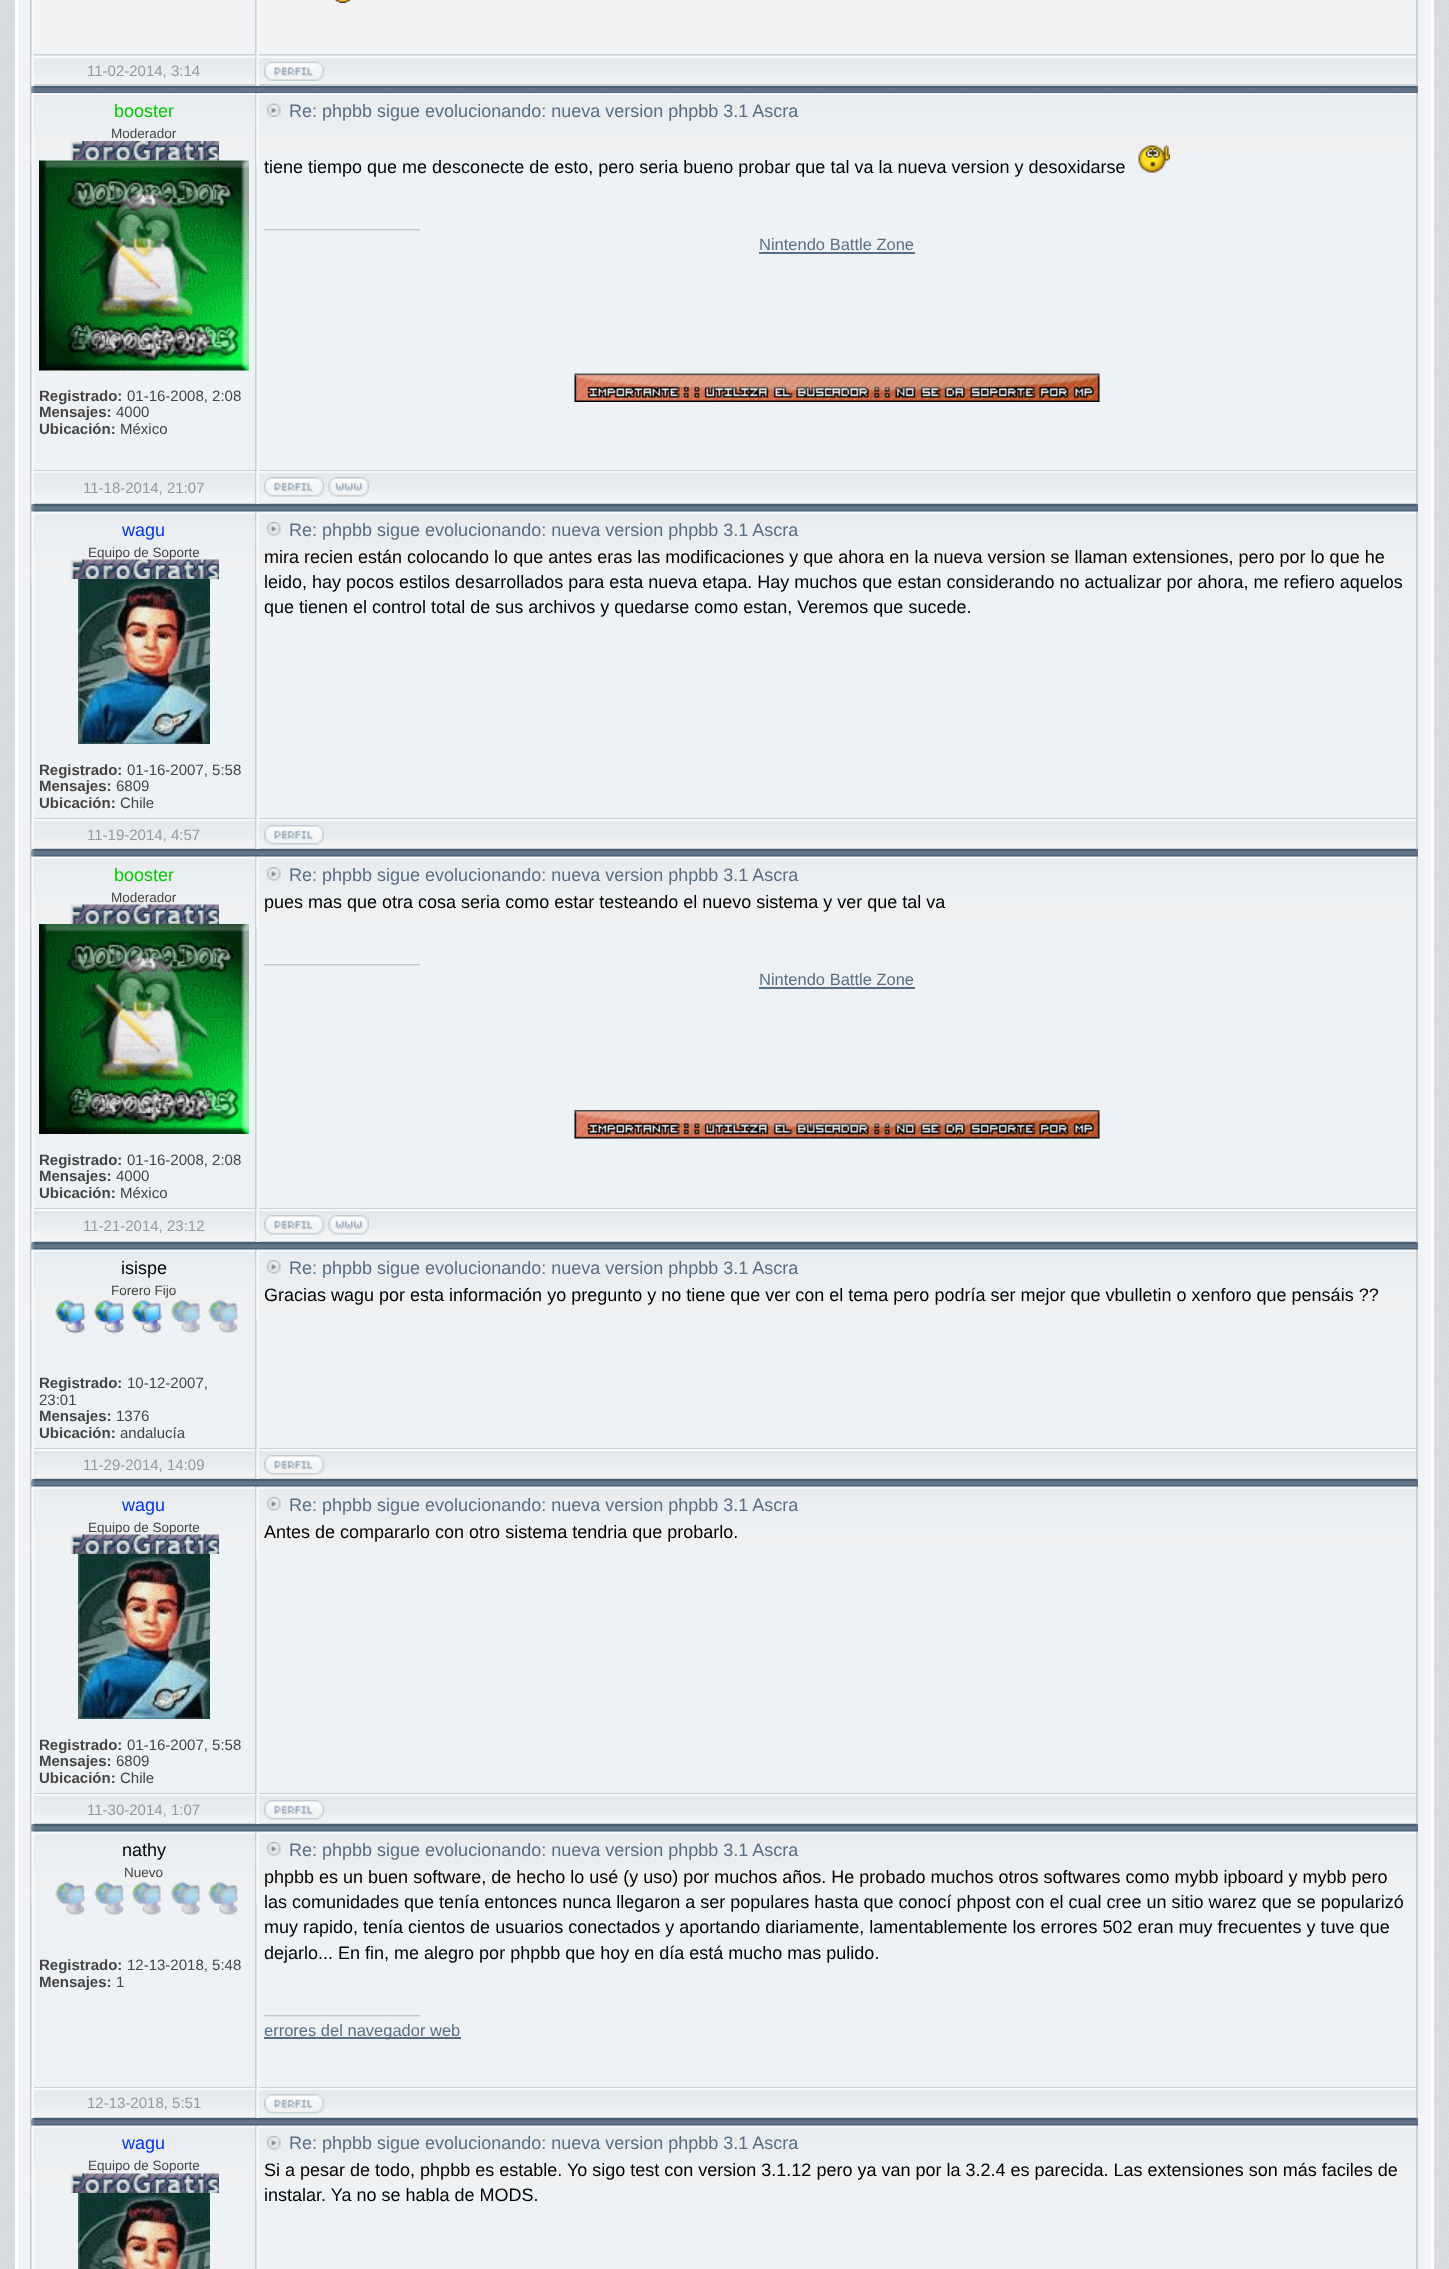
async function draw(canvas) {
  canvas.width = 1449;
  canvas.height = 2269;
  const ctx = canvas.getContext('2d');
  ctx.miterLimit = 4;
  ctx.fontKerning = 'normal';
  function label(s, x, y, font, color) {
    ctx.font = font;
    ctx.fillStyle = color;
    ctx.fillText(s, x, y);
  }
  function rect(x, y, w, h, color) {
    ctx.fillStyle = color;
    ctx.fillRect(x, y, w, h);
  }
  async function image(src, x, y, w, h) {
    const img = new Image();
    img.src = src;
    await img.decode();
    ctx.drawImage(img, x, y, w, h);
  }

  rect(0, 0, 1449, 2269, '#fff');
  await image('assets/img1.png', 0, 0, 1449, 2269);
  ctx.strokeStyle = '#fff';
  ctx.lineWidth = 3;
  ctx.strokeRect(16.5, -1.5, 1416, 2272);
  rect(18, 0, 1413, 2269, '#f1f3f5');
  rect(30, 0, 2, 2269, '#c3cbd3');
  await image('assets/img2.png', 31, 0, 1, 56);
  rect(255, 0, 2, 56, '#cad1d8');
  rect(32, 54, 225, 2, '#cad1d8');
  rect(32, 0, 2, 56, '#f6f8f9');
  await image('assets/img3.png', 256, 0, 1, 56);
  rect(1416, 0, 2, 56, '#cad1d8');
  rect(257, 54, 1161, 2, '#cad1d8');
  rect(257, 0, 2, 56, '#f6f8f9');
  await image('assets/img4.png', 334, 0, 18, 3);
  await image('assets/img5.png', 31, 55, 226, 31);
  rect(32, 56, 225, 2, '#f6f8f9');
  rect(255, 56, 2, 30, '#cad1d8');
  rect(32, 84, 225, 2, '#cad1d8');
  rect(32, 56, 2, 30, '#f6f8f9');
  label('11-02-2014, 3:14', 87, 76, '15px Liberation Sans', '#96989b');
  await image('assets/img6.png', 256, 55, 1162, 31);
  rect(257, 56, 1161, 2, '#f6f8f9');
  rect(1416, 56, 2, 30, '#cad1d8');
  rect(257, 84, 1161, 2, '#cad1d8');
  rect(257, 56, 2, 30, '#f6f8f9');
  await image('assets/img7.png', 264, 61, 60, 20);
  await image('assets/img8.png', 31, 87, 1385, 6);
  rect(32, 86, 1386, 2, '#495e73');
  rect(1416, 86, 2, 7, '#5d7287');
  rect(32, 92, 1386, 1, '#4b6177');
  rect(32, 86, 2, 7, '#768a9d');
  await image('assets/img9.png', 31, 93, 224, 378);
  rect(32, 93, 225, 2, '#f6f8f9');
  rect(255, 93, 2, 378, '#cad1d8');
  rect(32, 470, 225, 1, '#cad1d8');
  rect(32, 93, 2, 378, '#f6f8f9');
  label('booster', 114, 117, '18px Liberation Sans', '#0c0');
  label('Moderador', 111, 138, '13.5px Liberation Sans', '#444');
  await image('assets/img10.png', 70, 141, 149, 20);
  await image('assets/img11.png', 39, 160, 210, 211);
  label('Registrado:', 39, 401, 'bold 15px Liberation Sans', '#444');
  label('01-16-2008, 2:08', 127, 401, '15px Liberation Sans', '#444');
  label('Mensajes:', 39, 417, 'bold 15px Liberation Sans', '#444');
  label('4000', 116, 417, '15px Liberation Sans', '#444');
  label('Ubicación:', 39, 434, 'bold 15px Liberation Sans', '#444');
  label('México', 120, 434, '15px Liberation Sans', '#444');
  await image('assets/img12.png', 256, 93, 1160, 378);
  rect(257, 93, 1161, 2, '#f6f8f9');
  rect(1416, 93, 2, 378, '#cad1d8');
  rect(257, 470, 1161, 1, '#cad1d8');
  rect(257, 93, 2, 378, '#f6f8f9');
  await image('assets/img13.png', 266, 103, 15, 14);
  label('Re: phpbb sigue evolucionando: nueva version phpbb 3.1 Ascra', 289, 117, '18px Liberation Sans', '#586e85');
  label('tiene tiempo que me desconecte de esto, pero seria bueno probar que tal va la nueva version y desoxidarse', 264, 173, '18px Liberation Sans', '#000');
  await image('assets/img14.png', 1138, 145, 32, 28);
  label('_________________', 264, 227, '16.5px Liberation Sans', '#b8b9bb');
  label('Nintendo Battle Zone', 759, 250, '16.5px Liberation Sans', '#586e85');
  rect(759, 252, 156, 2, '#586e85');
  await image('assets/img15.png', 574, 373, 526, 29);
  await image('assets/img16.png', 31, 471, 224, 33);
  rect(32, 471, 225, 2, '#f6f8f9');
  rect(255, 471, 2, 33, '#cad1d8');
  rect(32, 503, 225, 1, '#cad1d8');
  rect(32, 471, 2, 33, '#f6f8f9');
  label('11-18-2014, 21:07', 83, 493, '15px Liberation Sans', '#96989b');
  await image('assets/img17.png', 256, 471, 1160, 33);
  rect(257, 471, 1161, 2, '#f6f8f9');
  rect(1416, 471, 2, 33, '#cad1d8');
  rect(257, 503, 1161, 1, '#cad1d8');
  rect(257, 471, 2, 33, '#f6f8f9');
  await image('assets/img18.png', 264, 477, 60, 20);
  await image('assets/img19.png', 328, 477, 41, 20);
  await image('assets/img20.png', 31, 505, 1385, 7);
  rect(32, 504, 1386, 2, '#495e73');
  rect(1416, 504, 2, 8, '#5d7287');
  rect(32, 510, 1386, 2, '#4b6177');
  rect(32, 504, 2, 8, '#768a9d');
  await image('assets/img21.png', 31, 511, 226, 308);
  rect(32, 512, 225, 2, '#f6f8f9');
  rect(255, 512, 2, 307, '#cad1d8');
  rect(32, 818, 225, 1, '#cad1d8');
  rect(32, 512, 2, 307, '#f6f8f9');
  label('wagu', 122, 536, '18px Liberation Sans', '#03f');
  label('Equipo de Soporte', 88, 557, '13.5px Liberation Sans', '#444');
  await image('assets/img22.png', 70, 559, 149, 20);
  await image('assets/img23.png', 78, 579, 132, 165);
  label('Registrado:', 39, 775, 'bold 15px Liberation Sans', '#444');
  label('01-16-2007, 5:58', 127, 775, '15px Liberation Sans', '#444');
  label('Mensajes:', 39, 791, 'bold 15px Liberation Sans', '#444');
  label('6809', 116, 791, '15px Liberation Sans', '#444');
  label('Ubicación:', 39, 808, 'bold 15px Liberation Sans', '#444');
  label('Chile', 120, 808, '15px Liberation Sans', '#444');
  await image('assets/img24.png', 256, 511, 1162, 308);
  rect(257, 512, 1161, 2, '#f6f8f9');
  rect(1416, 512, 2, 307, '#cad1d8');
  rect(257, 818, 1161, 1, '#cad1d8');
  rect(257, 512, 2, 307, '#f6f8f9');
  await image('assets/img25.png', 266, 522, 15, 14);
  label('Re: phpbb sigue evolucionando: nueva version phpbb 3.1 Ascra', 289, 536, '18px Liberation Sans', '#586e85');
  label('mira recien están colocando lo que antes eras las modificaciones y que ahora en la nueva version se llaman extensiones, pero por lo que he', 264, 563, '18px Liberation Sans', '#000');
  label('leido, hay pocos estilos desarrollados para esta nueva etapa. Hay muchos que estan considerando no actualizar por ahora, me refiero aquelos', 264, 588, '18px Liberation Sans', '#000');
  label('que tienen el control total de sus archivos y quedarse como estan, Veremos que sucede.', 264, 613, '18px Liberation Sans', '#000');
  await image('assets/img26.png', 31, 819, 224, 30);
  rect(32, 819, 225, 2, '#f6f8f9');
  rect(255, 819, 2, 30, '#cad1d8');
  rect(32, 848, 225, 1, '#cad1d8');
  rect(32, 819, 2, 30, '#f6f8f9');
  label('11-19-2014, 4:57', 87, 840, '15px Liberation Sans', '#96989b');
  await image('assets/img27.png', 256, 819, 1160, 30);
  rect(257, 819, 1161, 2, '#f6f8f9');
  rect(1416, 819, 2, 30, '#cad1d8');
  rect(257, 848, 1161, 1, '#cad1d8');
  rect(257, 819, 2, 30, '#f6f8f9');
  await image('assets/img18.png', 264, 825, 60, 20);
  await image('assets/img28.png', 31, 850, 1385, 7);
  rect(32, 849, 1386, 2, '#495e73');
  rect(1416, 849, 2, 8, '#5d7287');
  rect(32, 855, 1386, 2, '#4b6177');
  rect(32, 849, 2, 8, '#768a9d');
  await image('assets/img29.png', 31, 856, 226, 353);
  rect(32, 857, 225, 2, '#f6f8f9');
  rect(255, 857, 2, 352, '#cad1d8');
  rect(32, 1208, 225, 1, '#cad1d8');
  rect(32, 857, 2, 352, '#f6f8f9');
  label('booster', 114, 881, '18px Liberation Sans', '#0c0');
  label('Moderador', 111, 902, '13.5px Liberation Sans', '#444');
  await image('assets/img30.png', 70, 904, 149, 20);
  await image('assets/img31.png', 39, 924, 210, 210);
  label('Registrado:', 39, 1165, 'bold 15px Liberation Sans', '#444');
  label('01-16-2008, 2:08', 127, 1165, '15px Liberation Sans', '#444');
  label('Mensajes:', 39, 1181, 'bold 15px Liberation Sans', '#444');
  label('4000', 116, 1181, '15px Liberation Sans', '#444');
  label('Ubicación:', 39, 1198, 'bold 15px Liberation Sans', '#444');
  label('México', 120, 1198, '15px Liberation Sans', '#444');
  await image('assets/img32.png', 256, 856, 1162, 353);
  rect(257, 857, 1161, 2, '#f6f8f9');
  rect(1416, 857, 2, 352, '#cad1d8');
  rect(257, 1208, 1161, 1, '#cad1d8');
  rect(257, 857, 2, 352, '#f6f8f9');
  await image('assets/img25.png', 266, 867, 15, 14);
  label('Re: phpbb sigue evolucionando: nueva version phpbb 3.1 Ascra', 289, 881, '18px Liberation Sans', '#586e85');
  label('pues mas que otra cosa seria como estar testeando el nuevo sistema y ver que tal va', 264, 908, '18px Liberation Sans', '#000');
  label('_________________', 264, 962, '16.5px Liberation Sans', '#b8b9bb');
  label('Nintendo Battle Zone', 759, 985, '16.5px Liberation Sans', '#586e85');
  rect(759, 987, 156, 2, '#586e85');
  await image('assets/img33.png', 574, 1110, 526, 29);
  await image('assets/img16.png', 31, 1209, 224, 33);
  rect(32, 1209, 225, 2, '#f6f8f9');
  rect(255, 1209, 2, 33, '#cad1d8');
  rect(32, 1241, 225, 1, '#cad1d8');
  rect(32, 1209, 2, 33, '#f6f8f9');
  label('11-21-2014, 23:12', 83, 1231, '15px Liberation Sans', '#96989b');
  await image('assets/img17.png', 256, 1209, 1160, 33);
  rect(257, 1209, 1161, 2, '#f6f8f9');
  rect(1416, 1209, 2, 33, '#cad1d8');
  rect(257, 1241, 1161, 1, '#cad1d8');
  rect(257, 1209, 2, 33, '#f6f8f9');
  await image('assets/img18.png', 264, 1215, 60, 20);
  await image('assets/img19.png', 328, 1215, 41, 20);
  await image('assets/img28.png', 31, 1243, 1385, 7);
  rect(32, 1242, 1386, 2, '#495e73');
  rect(1416, 1242, 2, 8, '#5d7287');
  rect(32, 1248, 1386, 2, '#4b6177');
  rect(32, 1242, 2, 8, '#768a9d');
  await image('assets/img34.png', 31, 1249, 226, 200);
  rect(32, 1250, 225, 2, '#f6f8f9');
  rect(255, 1250, 2, 199, '#cad1d8');
  rect(32, 1448, 225, 1, '#cad1d8');
  rect(32, 1250, 2, 199, '#f6f8f9');
  label('isispe', 121, 1274, '18px Liberation Sans', '#000');
  label('Forero Fijo', 111, 1295, '13.5px Liberation Sans', '#444');
  await image('assets/img35.png', 55, 1300, 184, 34);
  label('Registrado:', 39, 1388, 'bold 15px Liberation Sans', '#444');
  label('10-12-2007,', 127, 1388, '15px Liberation Sans', '#444');
  label('23:01', 39, 1405, '15px Liberation Sans', '#444');
  label('Mensajes:', 39, 1421, 'bold 15px Liberation Sans', '#444');
  label('1376', 116, 1421, '15px Liberation Sans', '#444');
  label('Ubicación:', 39, 1438, 'bold 15px Liberation Sans', '#444');
  label('andalucía', 120, 1438, '15px Liberation Sans', '#444');
  await image('assets/img36.png', 256, 1249, 1162, 200);
  rect(257, 1250, 1161, 2, '#f6f8f9');
  rect(1416, 1250, 2, 199, '#cad1d8');
  rect(257, 1448, 1161, 1, '#cad1d8');
  rect(257, 1250, 2, 199, '#f6f8f9');
  await image('assets/img25.png', 266, 1260, 15, 14);
  label('Re: phpbb sigue evolucionando: nueva version phpbb 3.1 Ascra', 289, 1274, '18px Liberation Sans', '#586e85');
  label('Gracias wagu por esta información yo pregunto y no tiene que ver con el tema pero podría ser mejor que vbulletin o xenforo que pensáis ??', 264, 1301, '18px Liberation Sans', '#000');
  await image('assets/img26.png', 31, 1449, 224, 30);
  rect(32, 1449, 225, 2, '#f6f8f9');
  rect(255, 1449, 2, 30, '#cad1d8');
  rect(32, 1478, 225, 1, '#cad1d8');
  rect(32, 1449, 2, 30, '#f6f8f9');
  label('11-29-2014, 14:09', 83, 1470, '15px Liberation Sans', '#96989b');
  await image('assets/img27.png', 256, 1449, 1160, 30);
  rect(257, 1449, 1161, 2, '#f6f8f9');
  rect(1416, 1449, 2, 30, '#cad1d8');
  rect(257, 1478, 1161, 1, '#cad1d8');
  rect(257, 1449, 2, 30, '#f6f8f9');
  await image('assets/img18.png', 264, 1455, 60, 20);
  await image('assets/img37.png', 31, 1480, 1385, 7);
  rect(32, 1479, 1386, 2, '#495e73');
  rect(1416, 1479, 2, 8, '#5d7287');
  rect(32, 1485, 1386, 2, '#4b6177');
  rect(32, 1479, 2, 8, '#768a9d');
  await image('assets/img21.png', 31, 1486, 226, 308);
  rect(32, 1487, 225, 2, '#f6f8f9');
  rect(255, 1487, 2, 307, '#cad1d8');
  rect(32, 1793, 225, 1, '#cad1d8');
  rect(32, 1487, 2, 307, '#f6f8f9');
  label('wagu', 122, 1511, '18px Liberation Sans', '#03f');
  label('Equipo de Soporte', 88, 1532, '13.5px Liberation Sans', '#444');
  await image('assets/img22.png', 70, 1534, 149, 20);
  await image('assets/img23.png', 78, 1554, 132, 165);
  label('Registrado:', 39, 1750, 'bold 15px Liberation Sans', '#444');
  label('01-16-2007, 5:58', 127, 1750, '15px Liberation Sans', '#444');
  label('Mensajes:', 39, 1766, 'bold 15px Liberation Sans', '#444');
  label('6809', 116, 1766, '15px Liberation Sans', '#444');
  label('Ubicación:', 39, 1783, 'bold 15px Liberation Sans', '#444');
  label('Chile', 120, 1783, '15px Liberation Sans', '#444');
  await image('assets/img24.png', 256, 1486, 1162, 308);
  rect(257, 1487, 1161, 2, '#f6f8f9');
  rect(1416, 1487, 2, 307, '#cad1d8');
  rect(257, 1793, 1161, 1, '#cad1d8');
  rect(257, 1487, 2, 307, '#f6f8f9');
  await image('assets/img25.png', 266, 1497, 15, 14);
  label('Re: phpbb sigue evolucionando: nueva version phpbb 3.1 Ascra', 289, 1511, '18px Liberation Sans', '#586e85');
  label('Antes de compararlo con otro sistema tendria que probarlo.', 264, 1538, '18px Liberation Sans', '#000');
  await image('assets/img26.png', 31, 1794, 224, 30);
  rect(32, 1794, 225, 2, '#f6f8f9');
  rect(255, 1794, 2, 30, '#cad1d8');
  rect(32, 1823, 225, 1, '#cad1d8');
  rect(32, 1794, 2, 30, '#f6f8f9');
  label('11-30-2014, 1:07', 87, 1815, '15px Liberation Sans', '#96989b');
  await image('assets/img27.png', 256, 1794, 1160, 30);
  rect(257, 1794, 1161, 2, '#f6f8f9');
  rect(1416, 1794, 2, 30, '#cad1d8');
  rect(257, 1823, 1161, 1, '#cad1d8');
  rect(257, 1794, 2, 30, '#f6f8f9');
  await image('assets/img18.png', 264, 1800, 60, 20);
  await image('assets/img28.png', 31, 1825, 1385, 7);
  rect(32, 1824, 1386, 2, '#495e73');
  rect(1416, 1824, 2, 8, '#5d7287');
  rect(32, 1830, 1386, 2, '#4b6177');
  rect(32, 1824, 2, 8, '#768a9d');
  await image('assets/img38.png', 31, 1831, 226, 257);
  rect(32, 1832, 225, 2, '#f6f8f9');
  rect(255, 1832, 2, 256, '#cad1d8');
  rect(32, 2087, 225, 1, '#cad1d8');
  rect(32, 1832, 2, 256, '#f6f8f9');
  label('nathy', 122, 1856, '18px Liberation Sans', '#000');
  label('Nuevo', 124, 1877, '13.5px Liberation Sans', '#444');
  await image('assets/img39.png', 55, 1882, 184, 34);
  label('Registrado:', 39, 1970, 'bold 15px Liberation Sans', '#444');
  label('12-13-2018, 5:48', 127, 1970, '15px Liberation Sans', '#444');
  label('Mensajes:', 39, 1987, 'bold 15px Liberation Sans', '#444');
  label('1', 116, 1987, '15px Liberation Sans', '#444');
  await image('assets/img40.png', 256, 1831, 1162, 257);
  rect(257, 1832, 1161, 2, '#f6f8f9');
  rect(1416, 1832, 2, 256, '#cad1d8');
  rect(257, 2087, 1161, 1, '#cad1d8');
  rect(257, 1832, 2, 256, '#f6f8f9');
  await image('assets/img25.png', 266, 1842, 15, 14);
  label('Re: phpbb sigue evolucionando: nueva version phpbb 3.1 Ascra', 289, 1856, '18px Liberation Sans', '#586e85');
  label('phpbb es un buen software, de hecho lo usé (y uso) por muchos años. He probado muchos otros softwares como mybb ipboard y mybb pero', 264, 1883, '18px Liberation Sans', '#000');
  label('las comunidades que tenía entonces nunca llegaron a ser populares hasta que conocí phpost con el cual cree un sitio warez que se popularizó', 264, 1908, '18px Liberation Sans', '#000');
  label('muy rapido, tenía cientos de usuarios conectados y aportando diariamente, lamentablemente los errores 502 eran muy frecuentes y tuve que', 264, 1933, '18px Liberation Sans', '#000');
  label('dejarlo... En fin, me alegro por phpbb que hoy en día está mucho mas pulido.', 264, 1959, '18px Liberation Sans', '#000');
  label('_________________', 264, 2013, '16.5px Liberation Sans', '#b8b9bb');
  rect(264, 2037, 197, 2, '#586e85');
  label('errores del navegador web', 264, 2036, '16.5px Liberation Sans', '#586e85');
  await image('assets/img26.png', 31, 2088, 224, 30);
  rect(32, 2088, 225, 2, '#f6f8f9');
  rect(255, 2088, 2, 30, '#cad1d8');
  rect(32, 2117, 225, 1, '#cad1d8');
  rect(32, 2088, 2, 30, '#f6f8f9');
  label('12-13-2018, 5:51', 87, 2108, '15px Liberation Sans', '#96989b');
  await image('assets/img27.png', 256, 2088, 1160, 30);
  rect(257, 2088, 1161, 2, '#f6f8f9');
  rect(1416, 2088, 2, 30, '#cad1d8');
  rect(257, 2117, 1161, 1, '#cad1d8');
  rect(257, 2088, 2, 30, '#f6f8f9');
  await image('assets/img18.png', 264, 2094, 60, 20);
  await image('assets/img28.png', 31, 2119, 1385, 7);
  rect(32, 2118, 1386, 2, '#495e73');
  rect(1416, 2118, 2, 8, '#5d7287');
  rect(32, 2124, 1386, 2, '#4b6177');
  rect(32, 2118, 2, 8, '#768a9d');
  await image('assets/img41.png', 31, 2125, 226, 144);
  rect(32, 2126, 225, 2, '#f6f8f9');
  rect(255, 2126, 2, 143, '#cad1d8');
  rect(32, 2126, 2, 143, '#f6f8f9');
  label('wagu', 122, 2149, '18px Liberation Sans', '#03f');
  label('Equipo de Soporte', 88, 2170, '13.5px Liberation Sans', '#444');
  await image('assets/img30.png', 70, 2173, 149, 20);
  await image('assets/img42.png', 78, 2193, 132, 76);
  await image('assets/img43.png', 256, 2125, 1162, 144);
  rect(257, 2126, 1161, 2, '#f6f8f9');
  rect(1416, 2126, 2, 143, '#cad1d8');
  rect(257, 2126, 2, 143, '#f6f8f9');
  await image('assets/img25.png', 266, 2136, 15, 14);
  label('Re: phpbb sigue evolucionando: nueva version phpbb 3.1 Ascra', 289, 2149, '18px Liberation Sans', '#586e85');
  label('Si a pesar de todo, phpbb es estable. Yo sigo test con version 3.1.12 pero ya van por la 3.2.4 es parecida. Las extensiones son más faciles de', 264, 2176, '18px Liberation Sans', '#000');
  label('instalar. Ya no se habla de MODS.', 264, 2201, '18px Liberation Sans', '#000');
}

draw(document.querySelector('canvas'));
